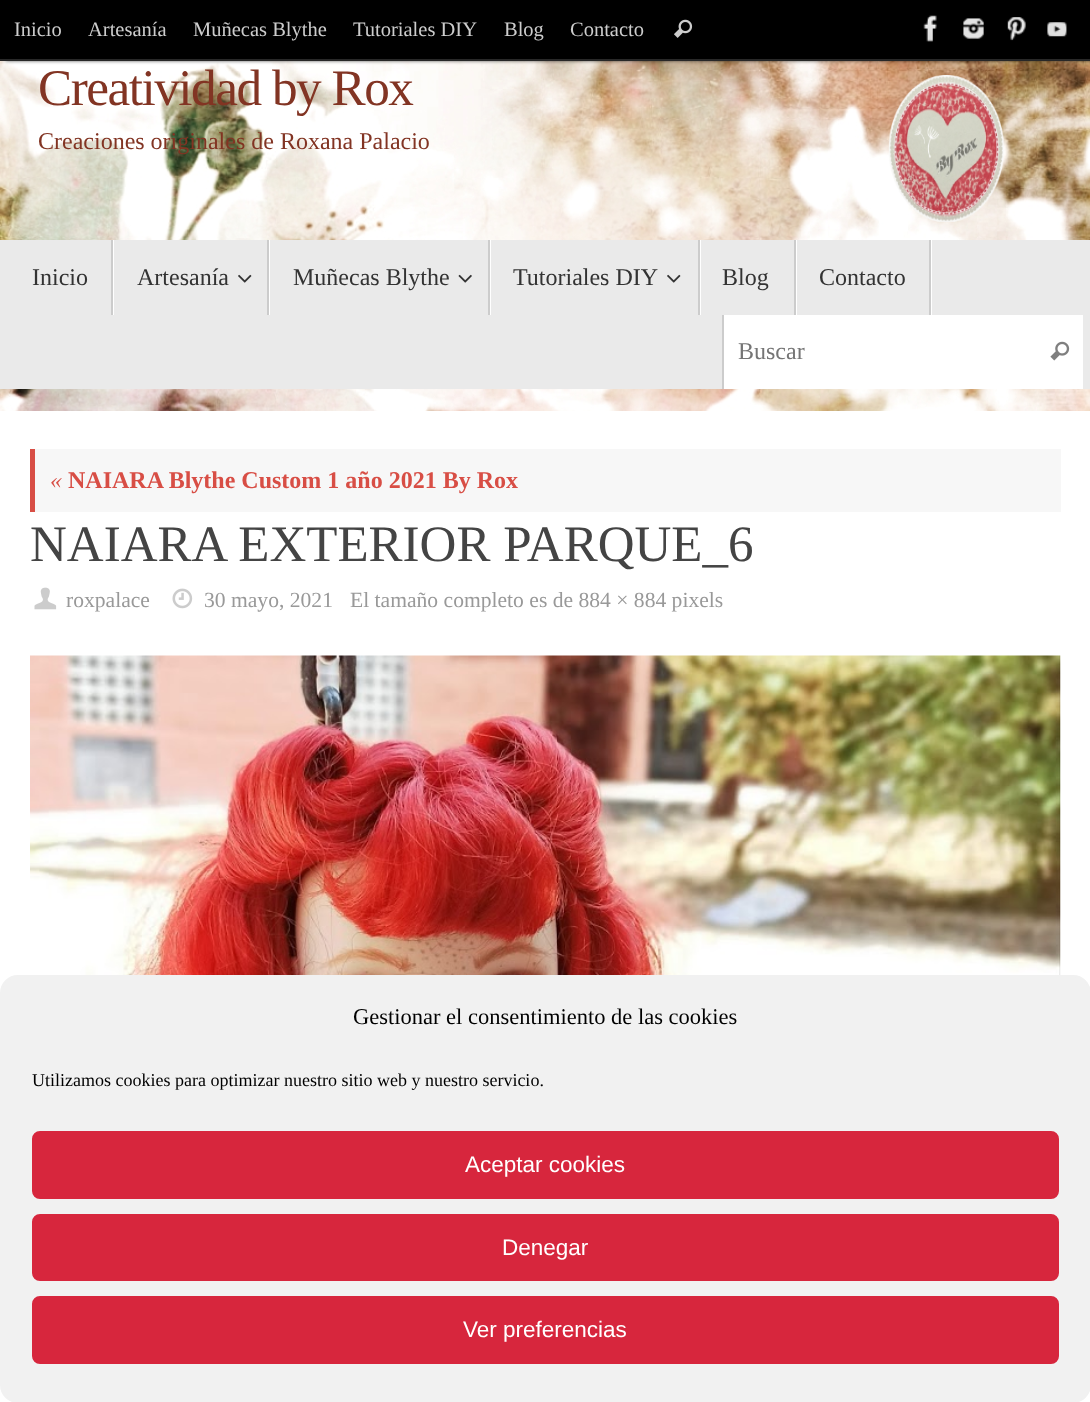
async function draw(canvas) {
  canvas.width = 1090;
  canvas.height = 1402;
  const ctx = canvas.getContext('2d');
  ctx.miterLimit = 4;
  ctx.fontKerning = 'normal';
  function label(s, x, y, font, color) {
    ctx.font = font;
    ctx.fillStyle = color;
    ctx.fillText(s, x, y);
  }
  function rect(x, y, w, h, color) {
    ctx.fillStyle = color;
    ctx.fillRect(x, y, w, h);
  }
  async function image(src, x, y, w, h) {
    const img = new Image();
    img.src = src;
    await img.decode();
    ctx.drawImage(img, x, y, w, h);
  }

  rect(0, 0, 1090, 1402, '#fff');
  await image('assets/img1.png', 0, 61, 1090, 350);
  ctx.fillStyle = '#000';
  ctx.filter = 'blur(2px)';
  ctx.beginPath();
  ctx.rect(5, 0, 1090, 60);
  ctx.fill();
  ctx.filter = 'none';
  rect(0, 0, 1090, 59, '#000');
  rect(0, 59, 1090, 2, '#282828');
  label('Inicio', 14, 36, '20.5px Liberation Serif', '#ccc');
  label('Artesanía', 88, 36, '20.5px Liberation Serif', '#ccc');
  label('Muñecas Blythe', 193, 36, '20.5px Liberation Serif', '#ccc');
  label('Tutoriales DIY', 353, 36, '20.5px Liberation Serif', '#ccc');
  label('Blog', 504, 36, '20.5px Liberation Serif', '#ccc');
  label('Contacto', 570, 36, '20.5px Liberation Serif', '#ccc');
  await image('assets/img2.png', 674, 19, 19, 19);
  await image('assets/img3.png', 923, 15, 14, 27);
  await image('assets/img4.png', 963, 18, 21, 21);
  await image('assets/img5.png', 1007, 17, 19, 24);
  await image('assets/img6.png', 1047, 22, 20, 15);
  ctx.letterSpacing = '-1.5px';
  label('Creatividad by Rox', 38, 105, '51.25px Liberation Serif', '#823423');
  ctx.letterSpacing = '0px';
  label('Creaciones originales de Roxana Palacio', 38, 149, '24px Liberation Serif', '#823423');
  await image('assets/img7.png', 888, 75, 116, 147);
  rect(0, 240, 1090, 149, '#eaeaea');
  rect(113, 240, 1, 75, '#fff');
  rect(111, 240, 2, 75, '#ccc');
  label('Inicio', 32, 285, '24px Liberation Serif', '#333');
  rect(269, 240, 1, 75, '#fff');
  rect(267, 240, 2, 75, '#ccc');
  label('Artesanía', 137, 285, '24px Liberation Serif', '#333');
  await image('assets/img8.png', 238, 274, 14, 9);
  rect(490, 240, 1, 75, '#fff');
  rect(488, 240, 2, 75, '#ccc');
  label('Muñecas Blythe', 293, 285, '24px Liberation Serif', '#333');
  await image('assets/img9.png', 458, 274, 14, 9);
  rect(700, 240, 1, 75, '#fff');
  rect(698, 240, 2, 75, '#ccc');
  label('Tutoriales DIY', 513, 285, '24px Liberation Serif', '#333');
  await image('assets/img8.png', 667, 274, 14, 9);
  rect(796, 240, 1, 75, '#fff');
  rect(794, 240, 2, 75, '#ccc');
  label('Blog', 722, 285, '24px Liberation Serif', '#333');
  rect(931, 240, 1, 75, '#fff');
  rect(929, 240, 2, 75, '#ccc');
  label('Contacto', 819, 285, '24px Liberation Serif', '#333');
  rect(724, 315, 359, 74, '#fff');
  rect(722, 315, 2, 74, '#ccc');
  label('Buscar', 738, 359, '24px Liberation Serif', '#757575');
  await image('assets/img10.png', 1050, 341, 20, 20);
  rect(35, 449, 1026, 63, '#f7f7f7');
  rect(30, 449, 5, 63, '#d84e45');
  label('«', 50, 488, 'italic 24px Liberation Serif', '#d84e45');
  label('NAIARA Blythe Custom 1 año 2021 By Rox', 68, 488, 'bold 24px Liberation Serif', '#d84e45');
  label('NAIARA EXTERIOR PARQUE_6', 30, 561, '51px Liberation Serif', '#444');
  await image('assets/img11.png', 34, 587, 23, 23);
  label('roxpalace', 66, 607, '21.6px Liberation Serif', '#999');
  await image('assets/img12.png', 172, 588, 21, 21);
  label('30 mayo, 2021', 204, 607, '21.6px Liberation Serif', '#999');
  label('El tamaño completo es de 884 × 884 pixels', 350, 607, '21.6px Liberation Serif', '#999');
  await image('assets/img13.png', 30, 655, 1031, 320);
  ctx.fillStyle = '#f1f1f1';
  ctx.beginPath();
  ctx.roundRect(1, 976, 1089, 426, 17);
  ctx.fill();
  ctx.strokeStyle = '#f1f1f1';
  ctx.lineWidth = 2;
  ctx.stroke();
  label('Gestionar el consentimiento de las cookies', 353, 1024, '22.5px Liberation Serif', '#000');
  label('Utilizamos cookies para optimizar nuestro sitio web y nuestro servicio.', 32, 1086, '18px Liberation Serif', '#000');
  ctx.fillStyle = '#d7263d';
  ctx.beginPath();
  ctx.roundRect(33, 1132, 1025, 66, 7);
  ctx.fill();
  ctx.strokeStyle = '#d7263d';
  ctx.stroke();
  label('Aceptar cookies', 465, 1172, '22.5px Liberation Sans', '#fff');
  ctx.fillStyle = '#d7263d';
  ctx.beginPath();
  ctx.roundRect(33, 1215, 1025, 65, 7);
  ctx.fill();
  ctx.stroke();
  label('Denegar', 502, 1255, '22.5px Liberation Sans', '#fff');
  ctx.fillStyle = '#d7263d';
  ctx.beginPath();
  ctx.roundRect(33, 1297, 1025, 66, 7);
  ctx.fill();
  ctx.stroke();
  label('Ver preferencias', 463, 1337, '22.5px Liberation Sans', '#fff');
}

draw(document.querySelector('canvas'));
